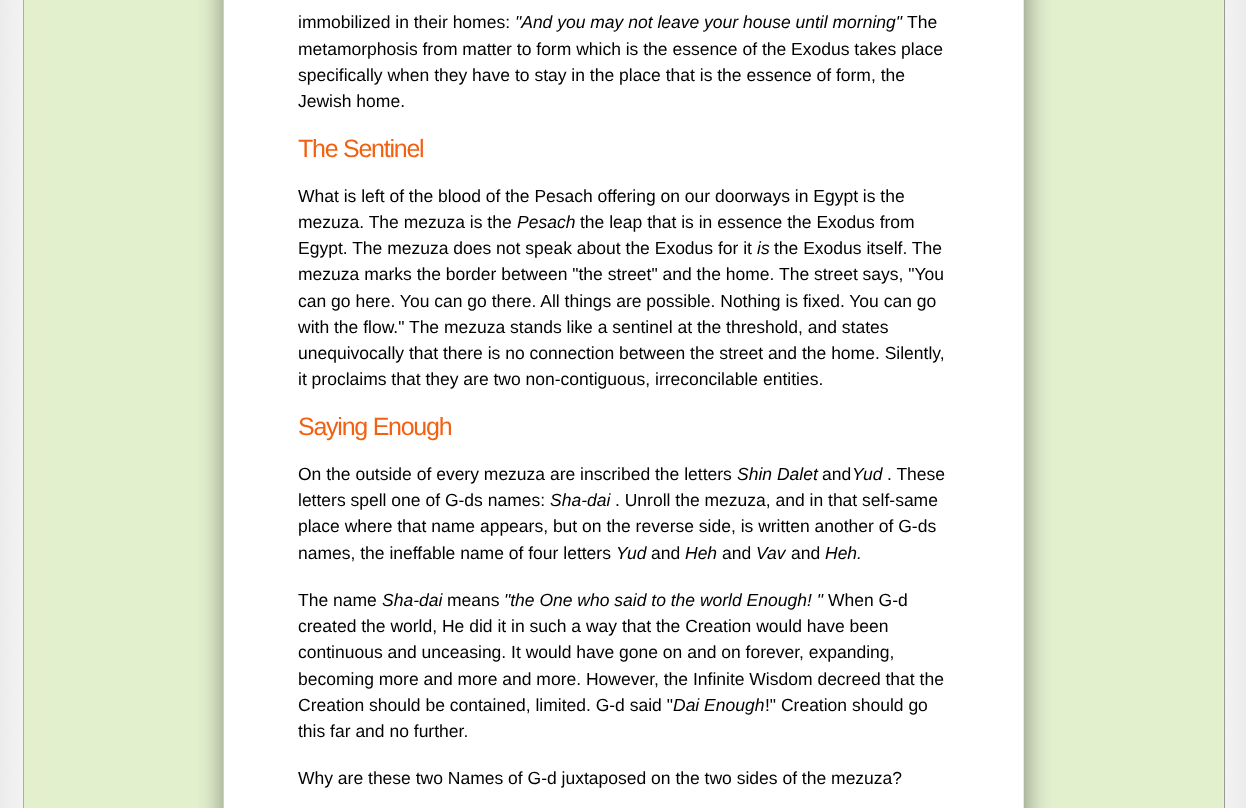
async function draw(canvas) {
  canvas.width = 1246;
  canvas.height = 808;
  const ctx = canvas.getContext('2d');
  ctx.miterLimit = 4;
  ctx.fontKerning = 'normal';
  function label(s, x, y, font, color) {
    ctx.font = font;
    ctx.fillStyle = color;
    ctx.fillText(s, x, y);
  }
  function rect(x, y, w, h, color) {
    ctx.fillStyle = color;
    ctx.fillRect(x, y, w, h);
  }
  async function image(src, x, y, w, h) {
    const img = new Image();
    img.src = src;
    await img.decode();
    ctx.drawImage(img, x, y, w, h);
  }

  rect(0, 0, 1246, 808, '#fff');
  await image('assets/img1.png', 0, 0, 1246, 808);
  rect(1224, 0, 1, 808, '#999');
  rect(23, 0, 1, 808, '#999');
  await image('assets/img2.png', 23, 0, 1201, 808);
  label('immobilized in their homes:', 298, 28, '17.5px Liberation Sans', '#000');
  label('"And you may not leave your house until morning"', 515, 28, 'italic 17.5px Liberation Sans', '#000');
  label('The', 907, 28, '17.5px Liberation Sans', '#000');
  label('metamorphosis from matter to form which is the essence of the Exodus takes place', 298, 55, '17.5px Liberation Sans', '#000');
  label('specifically when they have to stay in the place that is the essence of form, the', 298, 81, '17.5px Liberation Sans', '#000');
  label('Jewish home.', 298, 107, '17.5px Liberation Sans', '#000');
  ctx.letterSpacing = '-1.25px';
  label('The Sentinel', 298, 157, '25px Liberation Sans', '#f26011');
  ctx.letterSpacing = '0px';
  label('What is left of the blood of the Pesach offering on our doorways in Egypt is the', 298, 202, '17.5px Liberation Sans', '#000');
  label('mezuza. The mezuza is the', 298, 228, '17.5px Liberation Sans', '#000');
  label('Pesach', 517, 228, 'italic 17.5px Liberation Sans', '#000');
  label('the leap that is in essence the Exodus from', 580, 228, '17.5px Liberation Sans', '#000');
  label('Egypt. The mezuza does not speak about the Exodus for it', 298, 254, '17.5px Liberation Sans', '#000');
  label('is', 757, 254, 'italic 17.5px Liberation Sans', '#000');
  label('the Exodus itself. The', 774, 254, '17.5px Liberation Sans', '#000');
  label('mezuza marks the border between "the street" and the home. The street says, "You', 298, 280, '17.5px Liberation Sans', '#000');
  label('can go here. You can go there. All things are possible. Nothing is fixed. You can go', 298, 307, '17.5px Liberation Sans', '#000');
  label('with the flow." The mezuza stands like a sentinel at the threshold, and states', 298, 333, '17.5px Liberation Sans', '#000');
  label('unequivocally that there is no connection between the street and the home. Silently,', 298, 359, '17.5px Liberation Sans', '#000');
  label('it proclaims that they are two non-contiguous, irreconcilable entities.', 298, 385, '17.5px Liberation Sans', '#000');
  ctx.letterSpacing = '-1.25px';
  label('Saying Enough', 298, 435, '25px Liberation Sans', '#f26011');
  ctx.letterSpacing = '0px';
  label('On the outside of every mezuza are inscribed the letters', 298, 480, '17.5px Liberation Sans', '#000');
  label('Shin Dalet', 737, 480, 'italic 17.5px Liberation Sans', '#000');
  label('and', 822, 480, '17.5px Liberation Sans', '#000');
  label('Yud', 852, 480, 'italic 17.5px Liberation Sans', '#000');
  label('. These', 887, 480, '17.5px Liberation Sans', '#000');
  label('letters spell one of G-ds names:', 298, 506, '17.5px Liberation Sans', '#000');
  label('Sha-dai', 550, 506, 'italic 17.5px Liberation Sans', '#000');
  label('. Unroll the mezuza, and in that self-same', 615, 506, '17.5px Liberation Sans', '#000');
  label('place where that name appears, but on the reverse side, is written another of G-ds', 298, 532, '17.5px Liberation Sans', '#000');
  label('names, the ineffable name of four letters', 298, 559, '17.5px Liberation Sans', '#000');
  label('Yud', 616, 559, 'italic 17.5px Liberation Sans', '#000');
  label('and', 651, 559, '17.5px Liberation Sans', '#000');
  label('Heh', 685, 559, 'italic 17.5px Liberation Sans', '#000');
  label('and', 722, 559, '17.5px Liberation Sans', '#000');
  label('Vav', 756, 559, 'italic 17.5px Liberation Sans', '#000');
  label('and', 791, 559, '17.5px Liberation Sans', '#000');
  label('Heh.', 825, 559, 'italic 17.5px Liberation Sans', '#000');
  label('The name', 298, 606, '17.5px Liberation Sans', '#000');
  label('Sha-dai', 382, 606, 'italic 17.5px Liberation Sans', '#000');
  label('means', 447, 606, '17.5px Liberation Sans', '#000');
  label('"the One who said to the world Enough! "', 504, 606, 'italic 17.5px Liberation Sans', '#000');
  label('When G-d', 828, 606, '17.5px Liberation Sans', '#000');
  label('created the world, He did it in such a way that the Creation would have been', 298, 632, '17.5px Liberation Sans', '#000');
  label('continuous and unceasing. It would have gone on and on forever, expanding,', 298, 658, '17.5px Liberation Sans', '#000');
  label('becoming more and more and more. However, the Infinite Wisdom decreed that the', 298, 685, '17.5px Liberation Sans', '#000');
  label('Creation should be contained, limited. G-d said "', 298, 711, '17.5px Liberation Sans', '#000');
  label('Dai Enough', 673, 711, 'italic 17.5px Liberation Sans', '#000');
  label('!" Creation should go', 765, 711, '17.5px Liberation Sans', '#000');
  label('this far and no further.', 298, 737, '17.5px Liberation Sans', '#000');
  label('Why are these two Names of G-d juxtaposed on the two sides of the mezuza?', 298, 784, '17.5px Liberation Sans', '#000');
}

draw(document.querySelector('canvas'));
